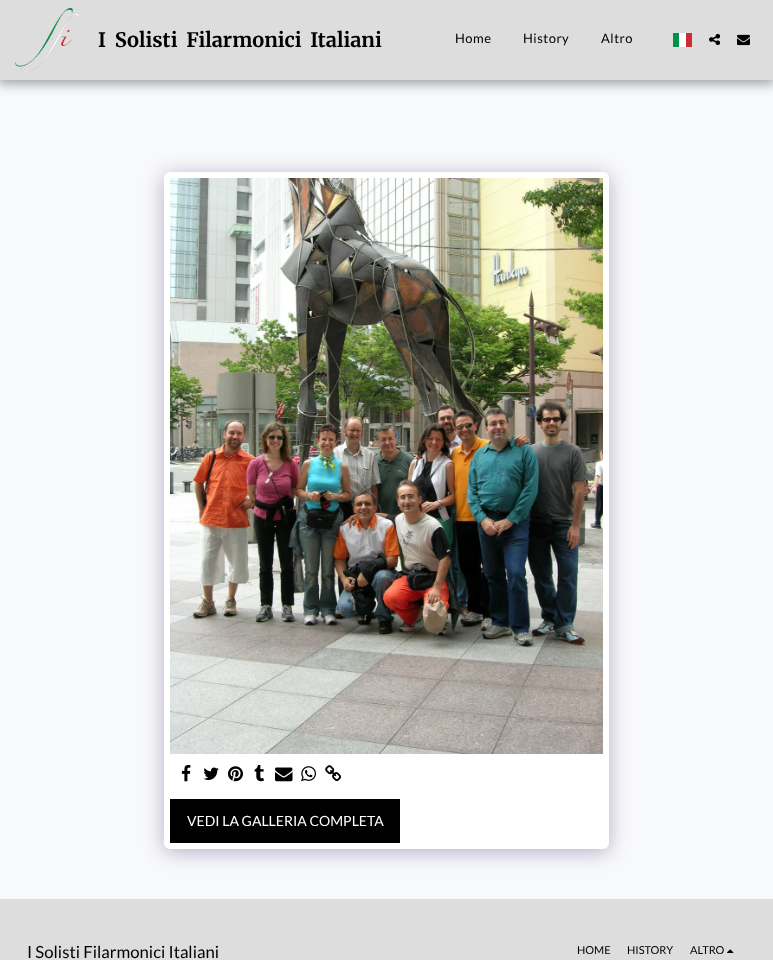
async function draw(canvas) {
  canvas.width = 773;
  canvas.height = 960;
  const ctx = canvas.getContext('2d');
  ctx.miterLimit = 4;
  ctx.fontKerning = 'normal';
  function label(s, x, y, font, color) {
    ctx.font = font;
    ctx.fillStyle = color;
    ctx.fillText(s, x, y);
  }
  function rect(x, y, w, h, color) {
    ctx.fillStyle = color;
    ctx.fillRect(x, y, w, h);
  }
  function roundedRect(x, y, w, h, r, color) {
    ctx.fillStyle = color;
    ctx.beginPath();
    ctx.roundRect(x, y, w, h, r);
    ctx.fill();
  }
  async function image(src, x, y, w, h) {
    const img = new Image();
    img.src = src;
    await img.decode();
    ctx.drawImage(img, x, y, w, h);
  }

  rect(0, 0, 773, 960, '#f8f9fb');
  ctx.fillStyle = '#00000059';
  ctx.filter = 'blur(6px)';
  ctx.beginPath();
  ctx.rect(-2, 0, 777, 84);
  ctx.fill();
  ctx.filter = 'none';
  rect(0, 0, 773, 80, '#ddd');
  await image('assets/img1.png', 15, 8, 64, 64);
  ctx.wordSpacing = '4px';
  label('I Solisti Filarmonici Italiani', 98, 47, 'bold 20px Merriweather', '#000');
  ctx.letterSpacing = '0.5px';
  ctx.wordSpacing = '0px';
  label('Home', 455, 43, '13px Lato', '#000');
  label('History', 523, 43, '13px Lato', '#000');
  label('Altro', 601, 43, '13px Lato', '#000');
  rect(679, 33, 7, 14, '#fff');
  rect(673, 33, 6, 14, '#009246');
  rect(686, 33, 6, 14, '#ce2b37');
  await image('assets/img2.png', 709, 33, 11, 13);
  await image('assets/img3.png', 737, 34, 13, 12);
  ctx.fillStyle = '#4d3f7a66';
  ctx.filter = 'blur(10px)';
  ctx.beginPath();
  ctx.roundRect(164, 175, 445, 677, 6);
  ctx.fill();
  ctx.filter = 'none';
  roundedRect(164, 172, 445, 677, 6, '#fff');
  await image('assets/img4.png', 170, 178, 433, 576);
  await image('assets/img5.png', 181, 765, 10, 17);
  await image('assets/img6.png', 203, 767, 16, 13);
  await image('assets/img7.png', 228, 766, 15, 16);
  await image('assets/img8.png', 254, 765, 10, 17);
  await image('assets/img9.png', 275, 767, 18, 15);
  await image('assets/img10.png', 301, 766, 15, 16);
  await image('assets/img11.png', 325, 765, 16, 17);
  rect(170, 799, 230, 44, '#000');
  ctx.letterSpacing = '0px';
  label('VEDI LA GALLERIA COMPLETA', 187, 826, '14px Lato', '#fff');
  rect(0, 899, 773, 61, '#ddd');
  label('I Solisti Filarmonici Italiani', 27, 958, '16.75px Lato', '#000');
  label('HOME', 577, 954, '11px Lato', '#000');
  label('HISTORY', 627, 954, '11px Lato', '#000');
  label('ALTRO', 690, 954, '11px Lato', '#000');
  await image('assets/img12.png', 727, 949, 7, 4);
}

draw(document.querySelector('canvas'));
